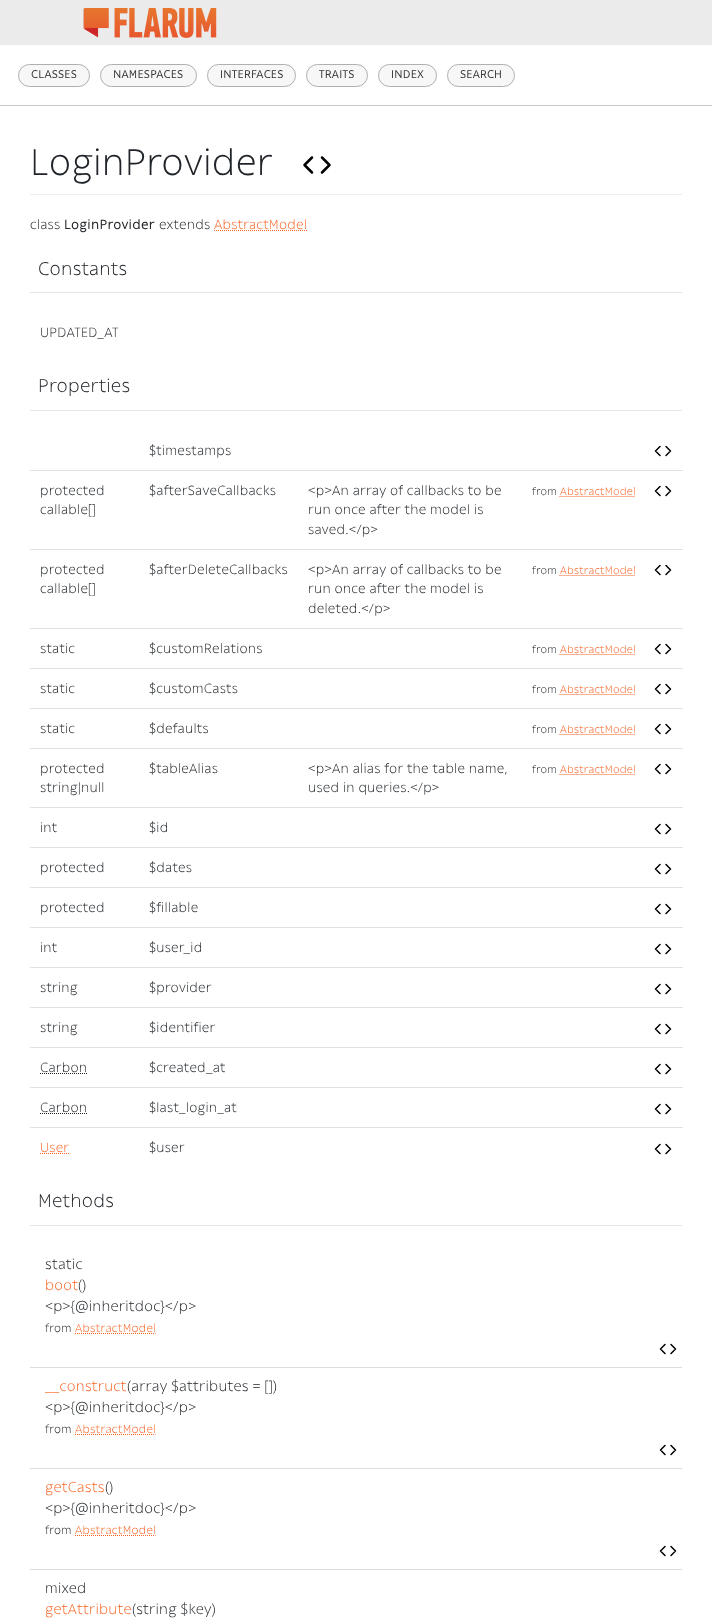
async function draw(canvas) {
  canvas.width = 712;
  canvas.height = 1624;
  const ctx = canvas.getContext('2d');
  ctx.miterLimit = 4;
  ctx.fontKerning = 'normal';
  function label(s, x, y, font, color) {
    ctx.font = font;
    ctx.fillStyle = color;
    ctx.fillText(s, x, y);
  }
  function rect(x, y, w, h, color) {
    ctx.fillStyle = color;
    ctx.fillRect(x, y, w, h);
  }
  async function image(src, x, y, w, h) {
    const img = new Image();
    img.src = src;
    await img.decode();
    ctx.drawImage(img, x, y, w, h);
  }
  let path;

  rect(0, 0, 712, 1624, '#fff');
  rect(0, 0, 712, 45, '#ebebeb');
  await image('assets/img1.png', 83, 8, 134, 30);
  rect(0, 105, 712, 1, '#c8c8c8');
  ctx.fillStyle = '#f7f7f7';
  ctx.beginPath();
  ctx.roundRect(18.5, 64.5, 71, 22, 11);
  ctx.fill();
  ctx.strokeStyle = '#afafaf';
  ctx.stroke();
  ctx.letterSpacing = '0.25px';
  label('CLASSES', 31, 78, '11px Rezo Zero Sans', '#333');
  ctx.fillStyle = '#f7f7f7';
  ctx.beginPath();
  ctx.roundRect(100.5, 64.5, 96, 22, 11);
  ctx.fill();
  ctx.stroke();
  label('NAMESPACES', 113, 78, '11px Rezo Zero Sans', '#333');
  ctx.fillStyle = '#f7f7f7';
  ctx.beginPath();
  ctx.roundRect(207.5, 64.5, 88, 22, 11);
  ctx.fill();
  ctx.stroke();
  label('INTERFACES', 220, 78, '11px Rezo Zero Sans', '#333');
  ctx.fillStyle = '#f7f7f7';
  ctx.beginPath();
  ctx.roundRect(306.5, 64.5, 61, 22, 11);
  ctx.fill();
  ctx.stroke();
  label('TRAITS', 319, 78, '11px Rezo Zero Sans', '#333');
  ctx.fillStyle = '#f7f7f7';
  ctx.beginPath();
  ctx.roundRect(378.5, 64.5, 58, 22, 11);
  ctx.fill();
  ctx.stroke();
  label('INDEX', 391, 78, '11px Rezo Zero Sans', '#333');
  ctx.fillStyle = '#f7f7f7';
  ctx.beginPath();
  ctx.roundRect(447.5, 64.5, 67, 22, 11);
  ctx.fill();
  ctx.stroke();
  label('SEARCH', 460, 78, '11px Rezo Zero Sans', '#333');
  rect(30, 194, 652, 1, '#eee');
  label('LoginProvider', 30, 175, '300 36px Rezo Zero Sans', '#212529');
  path = new Path2D('M322 172.5L329.5 165L322 157.5M312 157.5L304.5 165L312 172.5');
  ctx.strokeStyle = '#000';
  ctx.lineWidth = 2.5;
  ctx.lineCap = 'round';
  ctx.lineJoin = 'round';
  ctx.stroke(path);
  label('class', 30, 229, '300 13px Rezo Zero Sans', '#212529');
  label('LoginProvider', 64, 229, '13px Rezo Zero Sans', '#212529');
  label('extends', 159, 229, '300 13px Rezo Zero Sans', '#212529');
  label('AbstractModel', 214, 229, '300 13px Rezo Zero Sans', '#f86425');
  path = new Path2D('M214 230.5H307');
  ctx.strokeStyle = '#f86425';
  ctx.lineWidth = 1;
  ctx.lineCap = 'butt';
  ctx.lineJoin = 'miter';
  ctx.setLineDash([1, 1]);
  ctx.stroke(path);
  rect(30, 292, 652, 1, '#e6e6e6');
  label('Constants', 38, 275, '300 18px Rezo Zero Sans', '#212529');
  label('UPDATED_AT', 40, 337, '300 13px Rezo Zero Sans', '#212529');
  rect(30, 410, 652, 1, '#e6e6e6');
  label('Properties', 38, 392, '300 18px Rezo Zero Sans', '#212529');
  label('$timestamps', 149, 455, '300 13px Rezo Zero Sans', '#212529');
  path = new Path2D('M666 455.5L670.5 451L666 446.5M660 446.5L655.5 451L660 455.5');
  ctx.strokeStyle = '#000';
  ctx.lineWidth = 1.5;
  ctx.lineCap = 'round';
  ctx.lineJoin = 'round';
  ctx.setLineDash([]);
  ctx.stroke(path);
  rect(30, 470, 653, 1, '#dee2e6');
  path = new Path2D('M666 495.5L670.5 491L666 486.5M660 486.5L655.5 491L660 495.5');
  ctx.stroke(path);
  label('protected', 40, 495, '300 13px Rezo Zero Sans', '#212529');
  label('callable[]', 40, 514, '300 13px Rezo Zero Sans', '#212529');
  label('$afterSaveCallbacks', 149, 495, '300 13px Rezo Zero Sans', '#212529');
  label('<p>An array of callbacks to be', 308, 495, '300 13px Rezo Zero Sans', '#212529');
  label('run once after the model is', 308, 514, '300 13px Rezo Zero Sans', '#212529');
  label('saved.<\/p>', 308, 534, '300 13px Rezo Zero Sans', '#212529');
  label('from', 532, 495, '300 10.5px Rezo Zero Sans', '#212529');
  label('AbstractModel', 560, 495, '300 10.5px Rezo Zero Sans', '#f86425');
  path = new Path2D('M559.5 496.5H634.5');
  ctx.strokeStyle = '#f86425';
  ctx.lineWidth = 1;
  ctx.lineCap = 'butt';
  ctx.lineJoin = 'miter';
  ctx.setLineDash([1, 1]);
  ctx.stroke(path);
  rect(30, 549, 653, 1, '#dee2e6');
  path = new Path2D('M666 574.5L670.5 570L666 565.5M660 565.5L655.5 570L660 574.5');
  ctx.strokeStyle = '#000';
  ctx.lineWidth = 1.5;
  ctx.lineCap = 'round';
  ctx.lineJoin = 'round';
  ctx.setLineDash([]);
  ctx.stroke(path);
  label('protected', 40, 574, '300 13px Rezo Zero Sans', '#212529');
  label('callable[]', 40, 593, '300 13px Rezo Zero Sans', '#212529');
  label('$afterDeleteCallbacks', 149, 574, '300 13px Rezo Zero Sans', '#212529');
  label('<p>An array of callbacks to be', 308, 574, '300 13px Rezo Zero Sans', '#212529');
  label('run once after the model is', 308, 593, '300 13px Rezo Zero Sans', '#212529');
  label('deleted.<\/p>', 308, 613, '300 13px Rezo Zero Sans', '#212529');
  label('from', 532, 574, '300 10.5px Rezo Zero Sans', '#212529');
  label('AbstractModel', 560, 574, '300 10.5px Rezo Zero Sans', '#f86425');
  path = new Path2D('M559.5 575.5H634.5');
  ctx.strokeStyle = '#f86425';
  ctx.lineWidth = 1;
  ctx.lineCap = 'butt';
  ctx.lineJoin = 'miter';
  ctx.setLineDash([1, 1]);
  ctx.stroke(path);
  rect(30, 628, 653, 1, '#dee2e6');
  path = new Path2D('M666 653.5L670.5 649L666 644.5M660 644.5L655.5 649L660 653.5');
  ctx.strokeStyle = '#000';
  ctx.lineWidth = 1.5;
  ctx.lineCap = 'round';
  ctx.lineJoin = 'round';
  ctx.setLineDash([]);
  ctx.stroke(path);
  label('static', 40, 653, '300 13px Rezo Zero Sans', '#212529');
  label('$customRelations', 149, 653, '300 13px Rezo Zero Sans', '#212529');
  label('from', 532, 653, '300 10.5px Rezo Zero Sans', '#212529');
  label('AbstractModel', 560, 653, '300 10.5px Rezo Zero Sans', '#f86425');
  path = new Path2D('M559.5 654.5H634.5');
  ctx.strokeStyle = '#f86425';
  ctx.lineWidth = 1;
  ctx.lineCap = 'butt';
  ctx.lineJoin = 'miter';
  ctx.setLineDash([1, 1]);
  ctx.stroke(path);
  rect(30, 668, 653, 1, '#dee2e6');
  path = new Path2D('M666 693.5L670.5 689L666 684.5M660 684.5L655.5 689L660 693.5');
  ctx.strokeStyle = '#000';
  ctx.lineWidth = 1.5;
  ctx.lineCap = 'round';
  ctx.lineJoin = 'round';
  ctx.setLineDash([]);
  ctx.stroke(path);
  label('static', 40, 693, '300 13px Rezo Zero Sans', '#212529');
  label('$customCasts', 149, 693, '300 13px Rezo Zero Sans', '#212529');
  label('from', 532, 693, '300 10.5px Rezo Zero Sans', '#212529');
  label('AbstractModel', 560, 693, '300 10.5px Rezo Zero Sans', '#f86425');
  path = new Path2D('M559.5 694.5H634.5');
  ctx.strokeStyle = '#f86425';
  ctx.lineWidth = 1;
  ctx.lineCap = 'butt';
  ctx.lineJoin = 'miter';
  ctx.setLineDash([1, 1]);
  ctx.stroke(path);
  rect(30, 708, 653, 1, '#dee2e6');
  path = new Path2D('M666 733.5L670.5 729L666 724.5M660 724.5L655.5 729L660 733.5');
  ctx.strokeStyle = '#000';
  ctx.lineWidth = 1.5;
  ctx.lineCap = 'round';
  ctx.lineJoin = 'round';
  ctx.setLineDash([]);
  ctx.stroke(path);
  label('static', 40, 733, '300 13px Rezo Zero Sans', '#212529');
  label('$defaults', 149, 733, '300 13px Rezo Zero Sans', '#212529');
  label('from', 532, 733, '300 10.5px Rezo Zero Sans', '#212529');
  label('AbstractModel', 560, 733, '300 10.5px Rezo Zero Sans', '#f86425');
  path = new Path2D('M559.5 734.5H634.5');
  ctx.strokeStyle = '#f86425';
  ctx.lineWidth = 1;
  ctx.lineCap = 'butt';
  ctx.lineJoin = 'miter';
  ctx.setLineDash([1, 1]);
  ctx.stroke(path);
  rect(30, 748, 653, 1, '#dee2e6');
  path = new Path2D('M666 773.5L670.5 769L666 764.5M660 764.5L655.5 769L660 773.5');
  ctx.strokeStyle = '#000';
  ctx.lineWidth = 1.5;
  ctx.lineCap = 'round';
  ctx.lineJoin = 'round';
  ctx.setLineDash([]);
  ctx.stroke(path);
  label('protected', 40, 773, '300 13px Rezo Zero Sans', '#212529');
  label('string|null', 40, 792, '300 13px Rezo Zero Sans', '#212529');
  label('$tableAlias', 149, 773, '300 13px Rezo Zero Sans', '#212529');
  label('<p>An alias for the table name,', 308, 773, '300 13px Rezo Zero Sans', '#212529');
  label('used in queries.<\/p>', 308, 792, '300 13px Rezo Zero Sans', '#212529');
  label('from', 532, 773, '300 10.5px Rezo Zero Sans', '#212529');
  label('AbstractModel', 560, 773, '300 10.5px Rezo Zero Sans', '#f86425');
  path = new Path2D('M559.5 774.5H634.5');
  ctx.strokeStyle = '#f86425';
  ctx.lineWidth = 1;
  ctx.lineCap = 'butt';
  ctx.lineJoin = 'miter';
  ctx.setLineDash([1, 1]);
  ctx.stroke(path);
  rect(30, 807, 653, 1, '#dee2e6');
  path = new Path2D('M666 833.5L670.5 829L666 824.5M660 824.5L655.5 829L660 833.5');
  ctx.strokeStyle = '#000';
  ctx.lineWidth = 1.5;
  ctx.lineCap = 'round';
  ctx.lineJoin = 'round';
  ctx.setLineDash([]);
  ctx.stroke(path);
  label('int', 40, 832, '300 13px Rezo Zero Sans', '#212529');
  label('$id', 149, 832, '300 13px Rezo Zero Sans', '#212529');
  rect(30, 847, 653, 1, '#dee2e6');
  path = new Path2D('M666 873.5L670.5 869L666 864.5M660 864.5L655.5 869L660 873.5');
  ctx.stroke(path);
  label('protected', 40, 872, '300 13px Rezo Zero Sans', '#212529');
  label('$dates', 149, 872, '300 13px Rezo Zero Sans', '#212529');
  rect(30, 887, 653, 1, '#dee2e6');
  path = new Path2D('M666 913.5L670.5 909L666 904.5M660 904.5L655.5 909L660 913.5');
  ctx.stroke(path);
  label('protected', 40, 912, '300 13px Rezo Zero Sans', '#212529');
  label('$fillable', 149, 912, '300 13px Rezo Zero Sans', '#212529');
  rect(30, 927, 653, 1, '#dee2e6');
  path = new Path2D('M666 953.5L670.5 949L666 944.5M660 944.5L655.5 949L660 953.5');
  ctx.stroke(path);
  label('int', 40, 952, '300 13px Rezo Zero Sans', '#212529');
  label('$user_id', 149, 952, '300 13px Rezo Zero Sans', '#212529');
  rect(30, 967, 653, 1, '#dee2e6');
  path = new Path2D('M666 993.5L670.5 989L666 984.5M660 984.5L655.5 989L660 993.5');
  ctx.stroke(path);
  label('string', 40, 992, '300 13px Rezo Zero Sans', '#212529');
  label('$provider', 149, 992, '300 13px Rezo Zero Sans', '#212529');
  rect(30, 1007, 653, 1, '#dee2e6');
  path = new Path2D('M666 1033.5L670.5 1029L666 1024.5M660 1024.5L655.5 1029L660 1033.5');
  ctx.stroke(path);
  label('string', 40, 1032, '300 13px Rezo Zero Sans', '#212529');
  label('$identifier', 149, 1032, '300 13px Rezo Zero Sans', '#212529');
  rect(30, 1047, 653, 1, '#dee2e6');
  path = new Path2D('M666 1073.5L670.5 1069L666 1064.5M660 1064.5L655.5 1069L660 1073.5');
  ctx.stroke(path);
  label('Carbon', 40, 1072, '300 13px Rezo Zero Sans', '#212529');
  path = new Path2D('M40 1073.5H87');
  ctx.strokeStyle = '#212529';
  ctx.lineWidth = 1;
  ctx.lineCap = 'butt';
  ctx.lineJoin = 'miter';
  ctx.setLineDash([1, 1]);
  ctx.stroke(path);
  label('$created_at', 149, 1072, '300 13px Rezo Zero Sans', '#212529');
  rect(30, 1087, 653, 1, '#dee2e6');
  path = new Path2D('M666 1113.5L670.5 1109L666 1104.5M660 1104.5L655.5 1109L660 1113.5');
  ctx.strokeStyle = '#000';
  ctx.lineWidth = 1.5;
  ctx.lineCap = 'round';
  ctx.lineJoin = 'round';
  ctx.setLineDash([]);
  ctx.stroke(path);
  label('Carbon', 40, 1112, '300 13px Rezo Zero Sans', '#212529');
  path = new Path2D('M40 1113.5H87');
  ctx.strokeStyle = '#212529';
  ctx.lineWidth = 1;
  ctx.lineCap = 'butt';
  ctx.lineJoin = 'miter';
  ctx.setLineDash([1, 1]);
  ctx.stroke(path);
  label('$last_login_at', 149, 1112, '300 13px Rezo Zero Sans', '#212529');
  rect(30, 1127, 653, 1, '#dee2e6');
  path = new Path2D('M666 1153.5L670.5 1149L666 1144.5M660 1144.5L655.5 1149L660 1153.5');
  ctx.strokeStyle = '#000';
  ctx.lineWidth = 1.5;
  ctx.lineCap = 'round';
  ctx.lineJoin = 'round';
  ctx.setLineDash([]);
  ctx.stroke(path);
  label('User', 40, 1152, '300 13px Rezo Zero Sans', '#f86425');
  path = new Path2D('M40 1153.5H69');
  ctx.strokeStyle = '#f86425';
  ctx.lineWidth = 1;
  ctx.lineCap = 'butt';
  ctx.lineJoin = 'miter';
  ctx.setLineDash([1, 1]);
  ctx.stroke(path);
  label('$user', 149, 1152, '300 13px Rezo Zero Sans', '#212529');
  rect(30, 1225, 652, 1, '#e6e6e6');
  label('Methods', 38, 1207, '300 18px Rezo Zero Sans', '#212529');
  rect(30, 1367, 652, 1, '#ddd');
  label('static', 45, 1269, '300 14px Rezo Zero Sans', '#212529');
  label('boot', 45, 1290, '300 14px Rezo Zero Sans', '#f86425');
  label('()', 78, 1290, '300 14px Rezo Zero Sans', '#212529');
  label('<p>{@inheritdoc}<\/p>', 45, 1311, '300 14px Rezo Zero Sans', '#212529');
  label('from', 45, 1332, '300 11.25px Rezo Zero Sans', '#212529');
  label('AbstractModel', 75, 1332, '300 11.25px Rezo Zero Sans', '#f86425');
  path = new Path2D('M75 1333.5H155.5');
  ctx.stroke(path);
  path = new Path2D('M671 1353.5L675.5 1349L671 1344.5M665 1344.5L660.5 1349L665 1353.5');
  ctx.strokeStyle = '#000';
  ctx.lineWidth = 1.5;
  ctx.lineCap = 'round';
  ctx.lineJoin = 'round';
  ctx.setLineDash([]);
  ctx.stroke(path);
  rect(30, 1468, 652, 1, '#ddd');
  label('__construct', 45, 1391, '300 14px Rezo Zero Sans', '#f86425');
  label('(array $attributes = [])', 127, 1391, '300 14px Rezo Zero Sans', '#212529');
  label('<p>{@inheritdoc}<\/p>', 45, 1412, '300 14px Rezo Zero Sans', '#212529');
  label('from', 45, 1433, '300 11.25px Rezo Zero Sans', '#212529');
  label('AbstractModel', 75, 1433, '300 11.25px Rezo Zero Sans', '#f86425');
  path = new Path2D('M75 1434.5H155.5');
  ctx.strokeStyle = '#f86425';
  ctx.lineWidth = 1;
  ctx.lineCap = 'butt';
  ctx.lineJoin = 'miter';
  ctx.setLineDash([1, 1]);
  ctx.stroke(path);
  path = new Path2D('M671 1454.5L675.5 1450L671 1445.5M665 1445.5L660.5 1450L665 1454.5');
  ctx.strokeStyle = '#000';
  ctx.lineWidth = 1.5;
  ctx.lineCap = 'round';
  ctx.lineJoin = 'round';
  ctx.setLineDash([]);
  ctx.stroke(path);
  rect(30, 1569, 652, 1, '#ddd');
  label('getCasts', 45, 1492, '300 14px Rezo Zero Sans', '#f86425');
  label('()', 105, 1492, '300 14px Rezo Zero Sans', '#212529');
  label('<p>{@inheritdoc}<\/p>', 45, 1513, '300 14px Rezo Zero Sans', '#212529');
  label('from', 45, 1534, '300 11.25px Rezo Zero Sans', '#212529');
  label('AbstractModel', 75, 1534, '300 11.25px Rezo Zero Sans', '#f86425');
  path = new Path2D('M75 1535.5H155.5');
  ctx.strokeStyle = '#f86425';
  ctx.lineWidth = 1;
  ctx.lineCap = 'butt';
  ctx.lineJoin = 'miter';
  ctx.setLineDash([1, 1]);
  ctx.stroke(path);
  path = new Path2D('M671 1555.5L675.5 1551L671 1546.5M665 1546.5L660.5 1551L665 1555.5');
  ctx.strokeStyle = '#000';
  ctx.lineWidth = 1.5;
  ctx.lineCap = 'round';
  ctx.lineJoin = 'round';
  ctx.setLineDash([]);
  ctx.stroke(path);
  label('mixed', 45, 1593, '300 14px Rezo Zero Sans', '#212529');
  label('getAttribute', 45, 1614, '300 14px Rezo Zero Sans', '#f86425');
  label('(string $key)', 132, 1614, '300 14px Rezo Zero Sans', '#212529');
}

draw(document.querySelector('canvas'));
